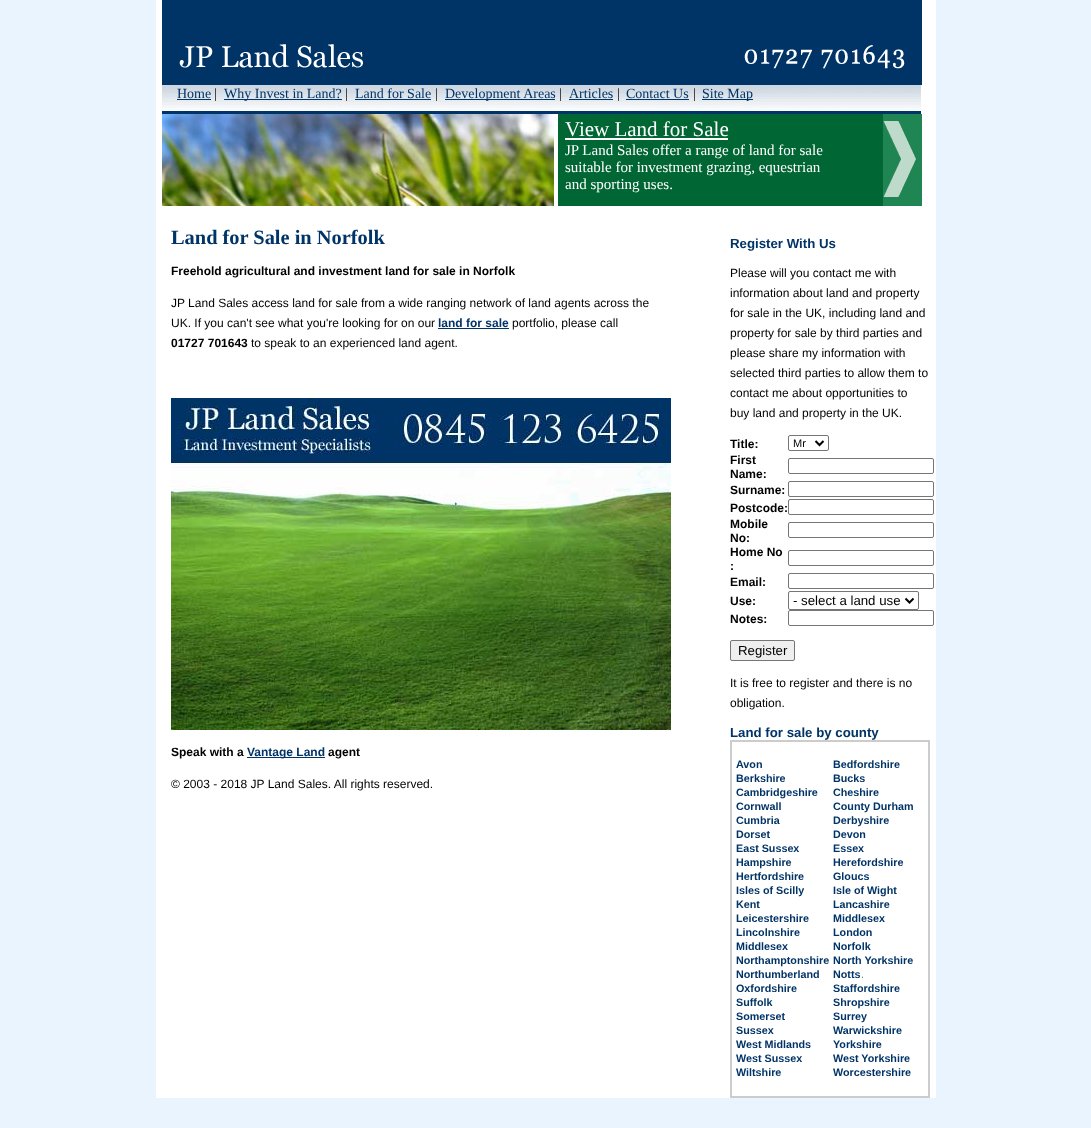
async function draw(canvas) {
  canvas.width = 1091;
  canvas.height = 1128;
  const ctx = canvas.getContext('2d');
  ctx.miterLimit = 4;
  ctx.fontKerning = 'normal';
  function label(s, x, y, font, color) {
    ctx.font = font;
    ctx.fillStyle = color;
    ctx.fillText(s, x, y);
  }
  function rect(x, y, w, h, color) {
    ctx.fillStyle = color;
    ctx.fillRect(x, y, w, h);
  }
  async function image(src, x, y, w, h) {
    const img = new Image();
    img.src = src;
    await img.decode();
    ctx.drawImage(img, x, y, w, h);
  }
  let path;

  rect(0, 0, 1091, 1128, '#e9f4ff');
  rect(156, 0, 780, 1098, '#fff');
  rect(162, 0, 760, 85, '#036');
  await image('assets/img1.png', 179, 44, 726, 25);
  await image('assets/img2.png', 162, 85, 759, 29);
  label('Home', 177, 98, '14px Liberation Serif', '#036');
  rect(177, 99, 34, 1, '#036');
  label('|', 214, 98, '14px Liberation Serif', '#000');
  rect(224, 99, 118, 1, '#036');
  label('Why Invest in Land?', 224, 98, '14px Liberation Serif', '#036');
  label('|', 345, 98, '14px Liberation Serif', '#000');
  label('Land for Sale', 355, 98, '14px Liberation Serif', '#036');
  rect(355, 99, 76, 1, '#036');
  label('|', 435, 98, '14px Liberation Serif', '#000');
  rect(445, 99, 110, 1, '#036');
  label('Development Areas', 445, 98, '14px Liberation Serif', '#036');
  label('|', 559, 98, '14px Liberation Serif', '#000');
  label('Articles', 569, 98, '14px Liberation Serif', '#036');
  rect(569, 99, 44, 1, '#036');
  label('|', 617, 98, '14px Liberation Serif', '#000');
  label('Contact Us', 626, 98, '14px Liberation Serif', '#036');
  rect(626, 99, 63, 1, '#036');
  label('|', 693, 98, '14px Liberation Serif', '#000');
  rect(702, 99, 51, 1, '#036');
  label('Site Map', 702, 98, '14px Liberation Serif', '#036');
  await image('assets/img3.png', 162, 114, 392, 92);
  await image('assets/img4.png', 558, 114, 364, 92);
  label('View Land for Sale', 565, 136, '21px Liberation Serif', '#fff');
  rect(565, 138, 163, 2, '#fff');
  label('JP Land Sales offer a range of land for sale', 565, 155, '15px Liberation Serif', '#fff');
  label('suitable for investment grazing, equestrian', 565, 172, '15px Liberation Serif', '#fff');
  label('and sporting uses.', 565, 189, '15px Liberation Serif', '#fff');
  label('Land for Sale in Norfolk', 171, 244, 'bold 20.4px Liberation Serif', '#036');
  label('Freehold agricultural and investment land for sale in Norfolk', 171, 275, 'bold 12px Liberation Sans', '#000');
  label('JP Land Sales access land for sale from a wide ranging network of land agents across the', 171, 307, '12px Liberation Sans', '#000');
  label('UK. If you can\'t see what you\'re looking for on our', 171, 327, '12px Liberation Sans', '#000');
  label('land for sale', 438, 327, 'bold 12px Liberation Sans', '#036');
  rect(438, 328, 71, 1, '#036');
  label('portfolio, please call', 512, 327, '12px Liberation Sans', '#000');
  label('01727 701643', 171, 347, 'bold 12px Liberation Sans', '#000');
  label('to speak to an experienced land agent.', 251, 347, '12px Liberation Sans', '#000');
  await image('assets/img5.png', 171, 398, 500, 332);
  label('Speak with a', 171, 756, 'bold 12px Liberation Sans', '#000');
  rect(247, 757, 78, 1, '#036');
  label('Vantage Land', 247, 756, 'bold 12px Liberation Sans', '#036');
  label('agent', 328, 756, 'bold 12px Liberation Sans', '#000');
  label('© 2003 - 2018 JP Land Sales. All rights reserved.', 171, 788, '12px Liberation Sans', '#000');
  label('Register With Us', 730, 248, 'bold 13.25px Liberation Sans', '#036');
  label('Please will you contact me with', 730, 277, '12px Liberation Sans', '#000');
  label('information about land and property', 730, 297, '12px Liberation Sans', '#000');
  label('for sale in the UK, including land and', 730, 317, '12px Liberation Sans', '#000');
  label('property for sale by third parties and', 730, 337, '12px Liberation Sans', '#000');
  label('please share my information with', 730, 357, '12px Liberation Sans', '#000');
  label('selected third parties to allow them to', 730, 377, '12px Liberation Sans', '#000');
  label('contact me about opportunities to', 730, 397, '12px Liberation Sans', '#000');
  label('buy land and property in the UK.', 730, 417, '12px Liberation Sans', '#000');
  label('Title:', 730, 448, 'bold 12px Liberation Sans', '#000');
  ctx.beginPath();
  ctx.roundRect(788.5, 435.5, 40, 15, 1.5);
  ctx.strokeStyle = '#767676';
  ctx.stroke();
  path = new Path2D('M815.5 441L819.5 445L823.5 441');
  ctx.strokeStyle = '#000';
  ctx.lineWidth = 2;
  ctx.stroke(path);
  label('Mr', 793, 447, '11px Liberation Sans', '#000');
  label('First', 730, 464, 'bold 12px Liberation Sans', '#000');
  label('Name:', 730, 478, 'bold 12px Liberation Sans', '#000');
  ctx.beginPath();
  ctx.roundRect(788.5, 458.5, 145, 15, 1.5);
  ctx.strokeStyle = '#767676';
  ctx.lineWidth = 1;
  ctx.stroke();
  label('Surname:', 730, 494, 'bold 12px Liberation Sans', '#000');
  ctx.beginPath();
  ctx.roundRect(788.5, 481.5, 145, 15, 1.5);
  ctx.stroke();
  label('Postcode:', 730, 512, 'bold 12px Liberation Sans', '#000');
  ctx.beginPath();
  ctx.roundRect(788.5, 499.5, 145, 15, 1.5);
  ctx.stroke();
  label('Mobile', 730, 528, 'bold 12px Liberation Sans', '#000');
  label('No:', 730, 542, 'bold 12px Liberation Sans', '#000');
  ctx.beginPath();
  ctx.roundRect(788.5, 522.5, 145, 15, 1.5);
  ctx.stroke();
  label('Home No', 730, 556, 'bold 12px Liberation Sans', '#000');
  label(':', 730, 570, 'bold 12px Liberation Sans', '#000');
  ctx.beginPath();
  ctx.roundRect(788.5, 550.5, 145, 15, 1.5);
  ctx.stroke();
  label('Email:', 730, 586, 'bold 12px Liberation Sans', '#000');
  ctx.beginPath();
  ctx.roundRect(788.5, 573.5, 145, 15, 1.5);
  ctx.stroke();
  label('Use:', 730, 605, 'bold 12px Liberation Sans', '#000');
  ctx.beginPath();
  ctx.roundRect(788.5, 591.5, 130, 18, 1.5);
  ctx.stroke();
  path = new Path2D('M905.5 598.5L909.5 602.5L913.5 598.5');
  ctx.strokeStyle = '#000';
  ctx.lineWidth = 2;
  ctx.stroke(path);
  label('- select a land use', 793, 605, '13.25px Liberation Sans', '#000');
  label('Notes:', 730, 623, 'bold 12px Liberation Sans', '#000');
  ctx.beginPath();
  ctx.roundRect(788.5, 610.5, 145, 15, 1.5);
  ctx.strokeStyle = '#767676';
  ctx.lineWidth = 1;
  ctx.stroke();
  ctx.fillStyle = '#efefef';
  ctx.beginPath();
  ctx.roundRect(730.5, 640.5, 64, 20, 1.5);
  ctx.fill();
  ctx.stroke();
  label('Register', 738, 655, '13.25px Liberation Sans', '#000');
  label('It is free to register and there is no', 730, 687, '12px Liberation Sans', '#000');
  label('obligation.', 730, 707, '12px Liberation Sans', '#000');
  label('Land for sale by county', 730, 737, 'bold 13.25px Liberation Sans', '#036');
  ctx.strokeStyle = '#ccc';
  ctx.lineWidth = 2;
  ctx.strokeRect(731, 741, 198, 356);
  label('Avon', 736, 768, 'bold 10.75px Liberation Sans', '#036');
  label('Bedfordshire', 833, 768, 'bold 10.75px Liberation Sans', '#036');
  label('Berkshire', 736, 782, 'bold 10.75px Liberation Sans', '#036');
  label('Bucks', 833, 782, 'bold 10.75px Liberation Sans', '#036');
  label('Cambridgeshire', 736, 796, 'bold 10.75px Liberation Sans', '#036');
  label('Cheshire', 833, 796, 'bold 10.75px Liberation Sans', '#036');
  label('Cornwall', 736, 810, 'bold 10.75px Liberation Sans', '#036');
  label('County Durham', 833, 810, 'bold 10.75px Liberation Sans', '#036');
  label('Cumbria', 736, 824, 'bold 10.75px Liberation Sans', '#036');
  label('Derbyshire', 833, 824, 'bold 10.75px Liberation Sans', '#036');
  label('Dorset', 736, 838, 'bold 10.75px Liberation Sans', '#036');
  label('Devon', 833, 838, 'bold 10.75px Liberation Sans', '#036');
  label('East Sussex', 736, 852, 'bold 10.75px Liberation Sans', '#036');
  label('Essex', 833, 852, 'bold 10.75px Liberation Sans', '#036');
  label('Hampshire', 736, 866, 'bold 10.75px Liberation Sans', '#036');
  label('Herefordshire', 833, 866, 'bold 10.75px Liberation Sans', '#036');
  label('Hertfordshire', 736, 880, 'bold 10.75px Liberation Sans', '#036');
  label('Gloucs', 833, 880, 'bold 10.75px Liberation Sans', '#036');
  label('Isles of Scilly', 736, 894, 'bold 10.75px Liberation Sans', '#036');
  label('Isle of Wight', 833, 894, 'bold 10.75px Liberation Sans', '#036');
  label('Kent', 736, 908, 'bold 10.75px Liberation Sans', '#036');
  label('Lancashire', 833, 908, 'bold 10.75px Liberation Sans', '#036');
  label('Leicestershire', 736, 922, 'bold 10.75px Liberation Sans', '#036');
  label('Middlesex', 833, 922, 'bold 10.75px Liberation Sans', '#036');
  label('Lincolnshire', 736, 936, 'bold 10.75px Liberation Sans', '#036');
  label('London', 833, 936, 'bold 10.75px Liberation Sans', '#036');
  label('Middlesex', 736, 950, 'bold 10.75px Liberation Sans', '#036');
  label('Norfolk', 833, 950, 'bold 10.75px Liberation Sans', '#036');
  label('Northamptonshire', 736, 964, 'bold 10.75px Liberation Sans', '#036');
  label('North Yorkshire', 833, 964, 'bold 10.75px Liberation Sans', '#036');
  label('Northumberland', 736, 978, 'bold 10.75px Liberation Sans', '#036');
  label('Notts', 833, 978, 'bold 10.75px Liberation Sans', '#036');
  label('.', 861, 978, '10.75px Liberation Sans', '#777');
  label('Oxfordshire', 736, 992, 'bold 10.75px Liberation Sans', '#036');
  label('Staffordshire', 833, 992, 'bold 10.75px Liberation Sans', '#036');
  label('Suffolk', 736, 1006, 'bold 10.75px Liberation Sans', '#036');
  label('Shropshire', 833, 1006, 'bold 10.75px Liberation Sans', '#036');
  label('Somerset', 736, 1020, 'bold 10.75px Liberation Sans', '#036');
  label('Surrey', 833, 1020, 'bold 10.75px Liberation Sans', '#036');
  label('Sussex', 736, 1034, 'bold 10.75px Liberation Sans', '#036');
  label('Warwickshire', 833, 1034, 'bold 10.75px Liberation Sans', '#036');
  label('West Midlands', 736, 1048, 'bold 10.75px Liberation Sans', '#036');
  label('Yorkshire', 833, 1048, 'bold 10.75px Liberation Sans', '#036');
  label('West Sussex', 736, 1062, 'bold 10.75px Liberation Sans', '#036');
  label('West Yorkshire', 833, 1062, 'bold 10.75px Liberation Sans', '#036');
  label('Wiltshire', 736, 1076, 'bold 10.75px Liberation Sans', '#036');
  label('Worcestershire', 833, 1076, 'bold 10.75px Liberation Sans', '#036');
}

draw(document.querySelector('canvas'));
